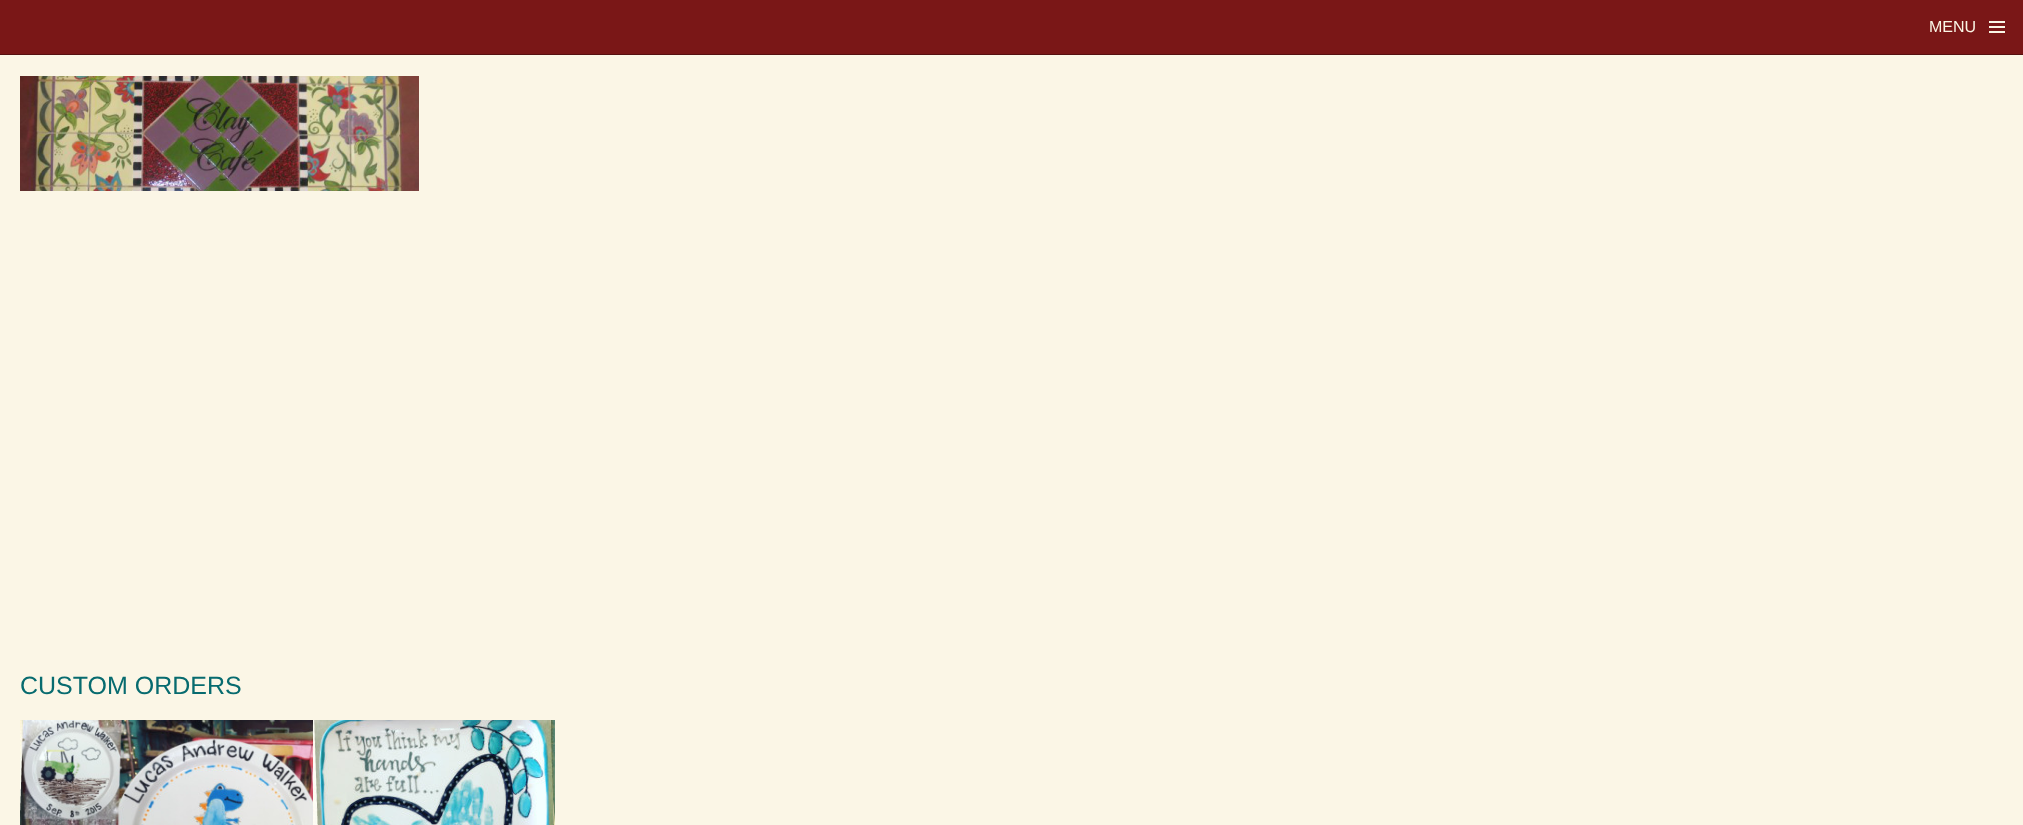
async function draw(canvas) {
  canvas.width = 2023;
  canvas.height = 825;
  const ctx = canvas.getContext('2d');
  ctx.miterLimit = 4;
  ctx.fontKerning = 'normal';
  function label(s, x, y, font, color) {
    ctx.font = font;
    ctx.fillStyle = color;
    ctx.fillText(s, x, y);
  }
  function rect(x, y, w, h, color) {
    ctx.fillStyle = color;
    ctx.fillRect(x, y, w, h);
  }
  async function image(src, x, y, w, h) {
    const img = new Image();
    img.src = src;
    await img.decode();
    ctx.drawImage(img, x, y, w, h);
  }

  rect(0, 0, 2023, 825, '#fbf6e6');
  rect(0, 0, 2023, 54, '#7a1717');
  rect(0, 54, 2023, 1, '#561010');
  label('MENU', 1929, 32, '16px Liberation Sans', '#fbf6e6');
  rect(1989, 21, 16, 2, '#fbf6e6');
  rect(1989, 26, 16, 2, '#fbf6e6');
  rect(1989, 31, 16, 2, '#fbf6e6');
  await image('assets/img1.png', 20, 76, 399, 115);
  label('CUSTOM ORDERS', 20, 694, '25px Liberation Sans', '#076b6f');
  await image('assets/img2.png', 20, 720, 293, 105);
  await image('assets/img3.png', 313, 720, 242, 105);
}

draw(document.querySelector('canvas'));
